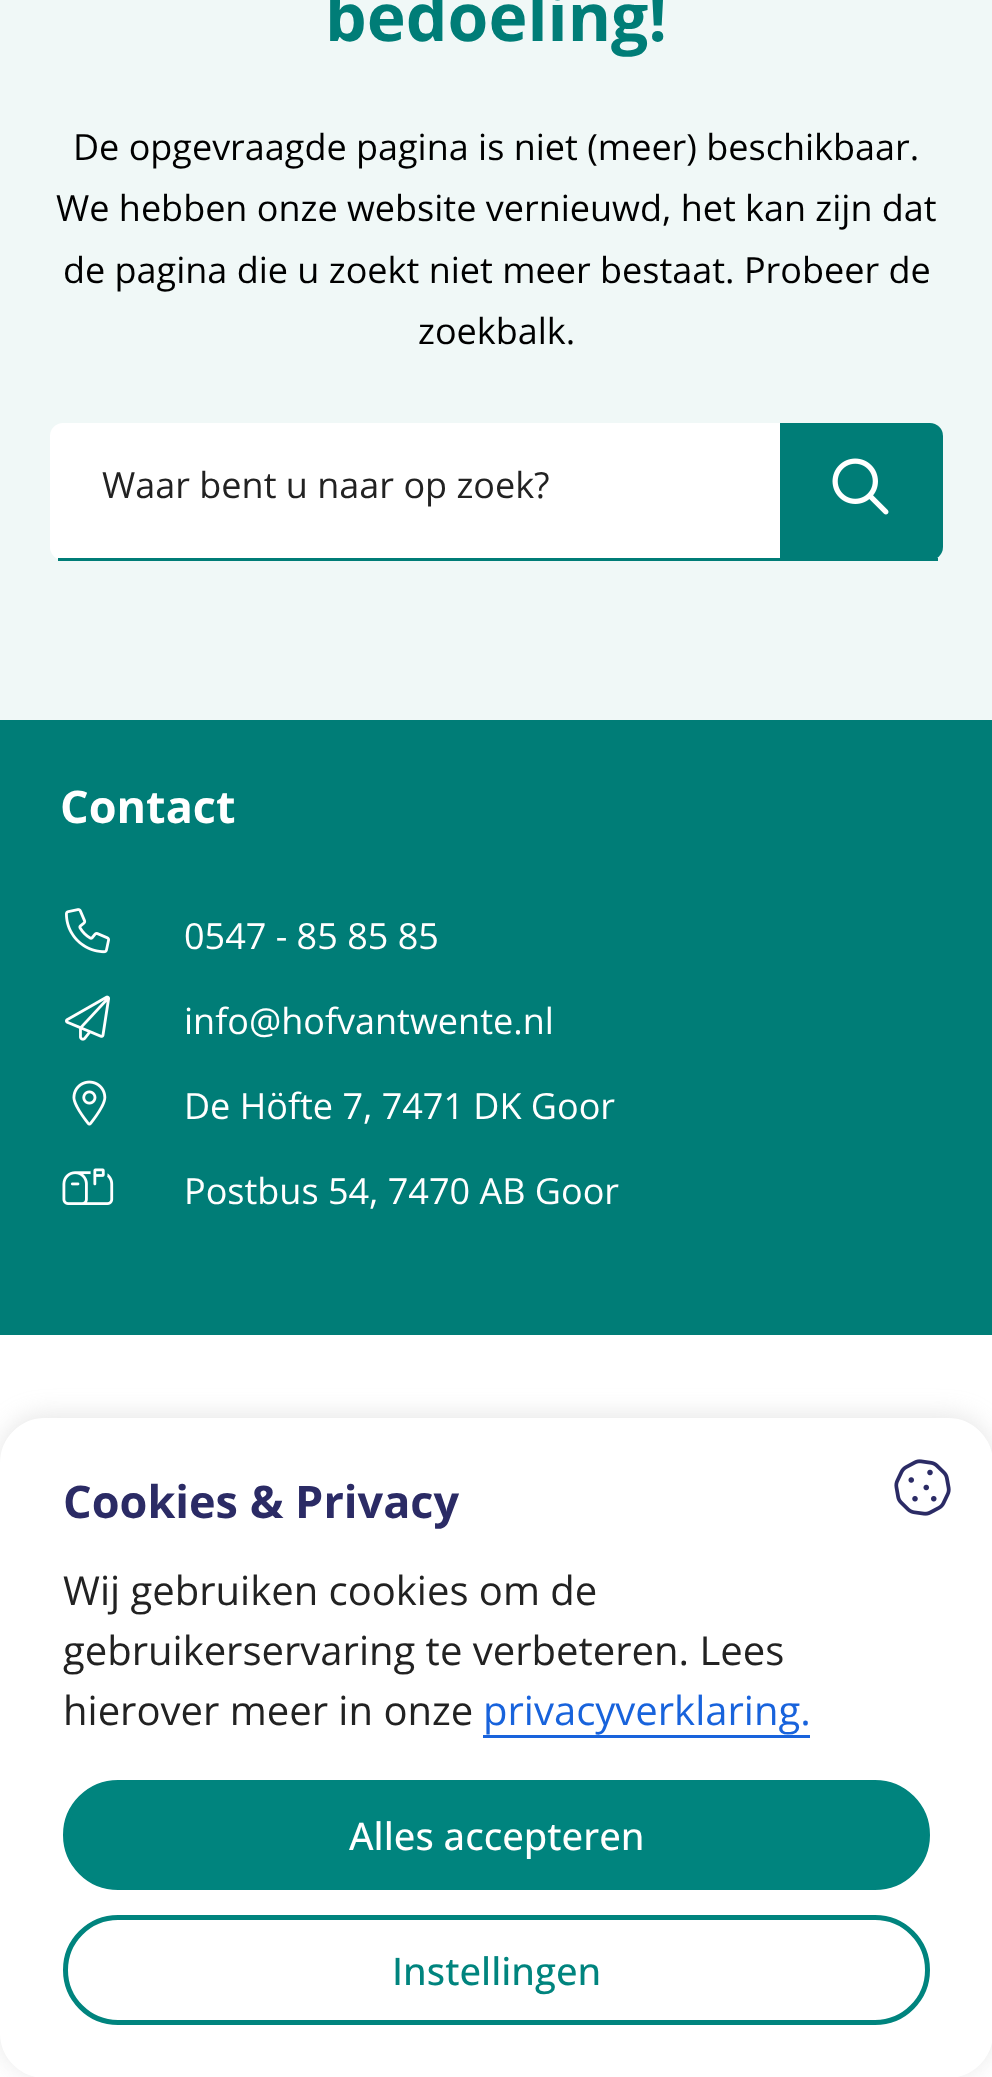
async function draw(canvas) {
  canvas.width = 992;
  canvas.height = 2077;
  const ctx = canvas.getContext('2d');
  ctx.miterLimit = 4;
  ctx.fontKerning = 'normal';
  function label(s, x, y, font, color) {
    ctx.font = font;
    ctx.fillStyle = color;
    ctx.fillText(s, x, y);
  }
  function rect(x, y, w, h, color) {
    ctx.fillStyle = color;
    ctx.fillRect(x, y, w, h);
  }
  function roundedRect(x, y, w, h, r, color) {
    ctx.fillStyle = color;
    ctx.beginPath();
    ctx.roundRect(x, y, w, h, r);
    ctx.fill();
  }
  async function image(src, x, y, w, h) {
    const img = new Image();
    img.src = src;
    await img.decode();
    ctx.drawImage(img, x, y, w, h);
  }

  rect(0, 0, 992, 2077, '#f0f8f7');
  label('bedoeling!', 325, 41, 'bold 66px Open Sans', '#007d77');
  label('De opgevraagde pagina is niet (meer) beschikbaar.', 73, 160, '36px Open Sans', '#000');
  label('We hebben onze website vernieuwd, het', 56, 221, '36px Open Sans', '#000');
  label('kan zijn dat', 745, 221, '36px Open Sans', '#000');
  label('de pagina die u zoekt niet meer bestaat. Probeer de', 63, 283, '36px Open Sans', '#000');
  label('zoekbalk.', 418, 344, '36px Open Sans', '#000');
  roundedRect(50, 423, 893, 137, 13, '#fff');
  rect(58, 558, 880, 3, '#007d77');
  ctx.beginPath();
  ctx.roundRect(780, 423, 163, 137, [0, 13, 13, 0]);
  ctx.fill();
  await image('assets/img1.png', 832, 458, 57, 57);
  label('Waar bent u naar op zoek?', 102, 498, '36px Open Sans', '#222');
  rect(0, 1335, 992, 742, '#fff');
  rect(0, 720, 992, 615, '#007d77');
  label('Contact', 60, 823, 'bold 45px Open Sans', '#fff');
  await image('assets/img2.png', 65, 908, 45, 46);
  label('0547 - 85 85 85', 184, 949, '36px Open Sans', '#fff');
  await image('assets/img3.png', 65, 995, 45, 46);
  label('info@hofvantwente.nl', 184, 1034, '36px Open Sans', '#fff');
  await image('assets/img4.png', 72, 1080, 35, 46);
  label('De Höfte 7, 7471 DK Goor', 184, 1119, '36px Open Sans', '#fff');
  await image('assets/img5.png', 62, 1168, 52, 37);
  label('Postbus 54, 7470 AB Goor', 184, 1204, '36px Open Sans', '#fff');
  ctx.fillStyle = '#acabab4d';
  ctx.filter = 'blur(12.5px)';
  ctx.beginPath();
  ctx.roundRect(0, 1415, 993, 660, 45);
  ctx.fill();
  ctx.filter = 'none';
  ctx.fillStyle = '#fff';
  ctx.beginPath();
  ctx.roundRect(1.5, 1419.5, 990, 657, 43.5);
  ctx.fill();
  ctx.strokeStyle = '#fff';
  ctx.lineWidth = 3;
  ctx.stroke();
  label('Cookies & Privacy', 63, 1518, 'bold 45px Open Sans', '#2b2b65');
  await image('assets/img6.png', 894, 1459, 57, 57);
  label('Wij gebruiken cookies om de', 63, 1605, '40px Open Sans', '#222');
  label('gebruikerservaring te verbeteren. Lees', 63, 1665, '40px Open Sans', '#222');
  label('hierover meer in onze', 63, 1725, '40px Open Sans', '#222');
  label('privacyverklaring.', 483, 1725, '40px Open Sans', '#1863dc');
  rect(483, 1735, 327, 3, '#1863dc');
  ctx.fillStyle = '#00847e';
  ctx.beginPath();
  ctx.roundRect(65.5, 1782.5, 862, 105, 52.5);
  ctx.fill();
  ctx.strokeStyle = '#00847e';
  ctx.lineWidth = 5;
  ctx.stroke();
  label('Alles accepteren', 349, 1850, '500 38px Open Sans', '#fff');
  ctx.beginPath();
  ctx.roundRect(65.5, 1917.5, 862, 105, 52.5);
  ctx.stroke();
  label('Instellingen', 392, 1985, '500 38px Open Sans', '#00847e');
}

draw(document.querySelector('canvas'));
